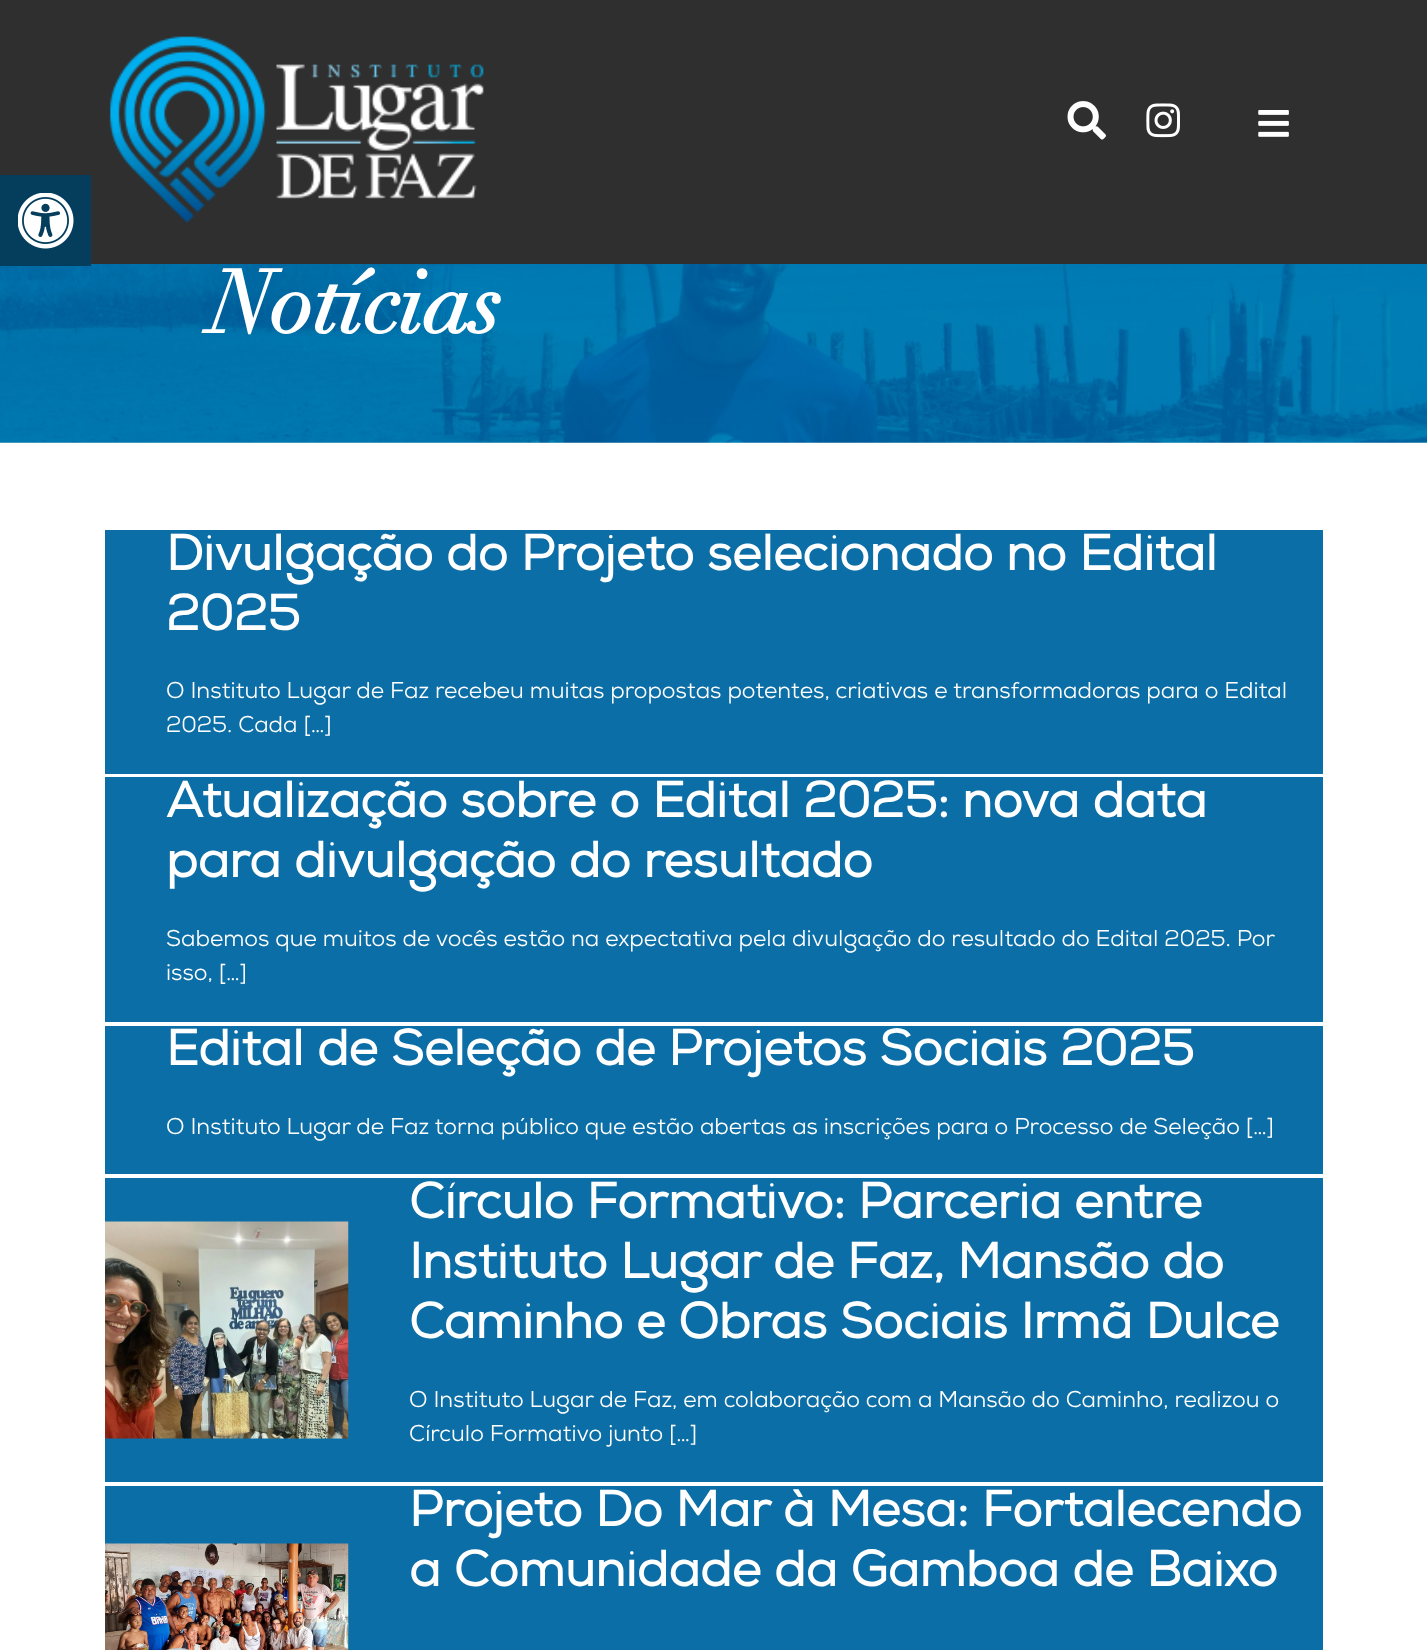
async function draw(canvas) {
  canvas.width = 1427;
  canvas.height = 1650;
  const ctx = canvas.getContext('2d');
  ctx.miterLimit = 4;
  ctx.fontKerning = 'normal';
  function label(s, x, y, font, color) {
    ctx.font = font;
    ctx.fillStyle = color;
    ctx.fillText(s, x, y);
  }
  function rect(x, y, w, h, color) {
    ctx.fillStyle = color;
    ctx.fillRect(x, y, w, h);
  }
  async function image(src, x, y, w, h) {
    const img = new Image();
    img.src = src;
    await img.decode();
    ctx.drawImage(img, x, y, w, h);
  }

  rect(0, 0, 1427, 1650, '#fff');
  rect(0, 0, 1427, 264, '#2f2f2f');
  await image('assets/img1.png', 109, 36, 375, 187);
  await image('assets/img2.png', 1067, 101, 39, 39);
  await image('assets/img3.png', 1146, 103, 34, 35);
  await image('assets/img4.png', 1258, 110, 31, 27);
  await image('assets/img6.png', 0, 264, 1427, 179);
  rect(0, 175, 91, 91, '#053d5d');
  await image('assets/img5.png', 18, 193, 56, 56);
  label('Notícias', 210, 333, 'italic bold 87.5px Didot', '#fff');
  rect(105, 530, 1218, 244, '#0b6ea6');
  label('Divulgação do Projeto selecionado no Edital', 166, 570, 'bold 49.95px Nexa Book', '#fff');
  label('2025', 166, 630, 'bold 49.95px Nexa Book', '#fff');
  label('O Instituto Lugar de Faz recebeu muitas propostas potentes, criativas e transformadoras para o Edital', 166, 698, '22.75px Nexa Book', '#fff');
  label('2025. Cada […]', 166, 732, '22.75px Nexa Book', '#fff');
  rect(105, 777, 1218, 245, '#0b6ea6');
  label('Atualização sobre o Edital 2025: nova data', 166, 817, 'bold 49.95px Nexa Book', '#fff');
  label('para divulgação do resultado', 166, 877, 'bold 49.95px Nexa Book', '#fff');
  label('Sabemos que muitos de vocês estão na expectativa pela divulgação do resultado do Edital 2025. Por', 166, 946, '22.75px Nexa Book', '#fff');
  label('isso, […]', 166, 980, '22.75px Nexa Book', '#fff');
  rect(105, 1026, 1218, 148, '#0b6ea6');
  label('Edital de Seleção de Projetos Sociais 2025', 166, 1065, 'bold 49.95px Nexa Book', '#fff');
  label('O Instituto Lugar de Faz torna público que estão abertas as inscrições para o Processo de Seleção […]', 166, 1134, '22.75px Nexa Book', '#fff');
  rect(105, 1178, 1218, 304, '#0b6ea6');
  await image('assets/img7.png', 105, 1221, 244, 218);
  label('Círculo Formativo: Parceria entre', 409, 1218, 'bold 49.95px Nexa Book', '#fff');
  label('Instituto Lugar de Faz, Mansão do', 409, 1278, 'bold 49.95px Nexa Book', '#fff');
  label('Caminho e Obras Sociais Irmã Dulce', 409, 1338, 'bold 49.95px Nexa Book', '#fff');
  label('O Instituto Lugar de Faz, em colaboração com a Mansão do Caminho, realizou o', 409, 1407, '22.75px Nexa Book', '#fff');
  label('Círculo Formativo junto […]', 409, 1441, '22.75px Nexa Book', '#fff');
  rect(105, 1486, 1218, 164, '#0b6ea6');
  await image('assets/img8.png', 105, 1543, 244, 107);
  label('Projeto Do Mar à Mesa: Fortalecendo', 409, 1526, 'bold 49.95px Nexa Book', '#fff');
  label('a Comunidade da Gamboa de Baixo', 409, 1586, 'bold 49.95px Nexa Book', '#fff');
}

draw(document.querySelector('canvas'));
